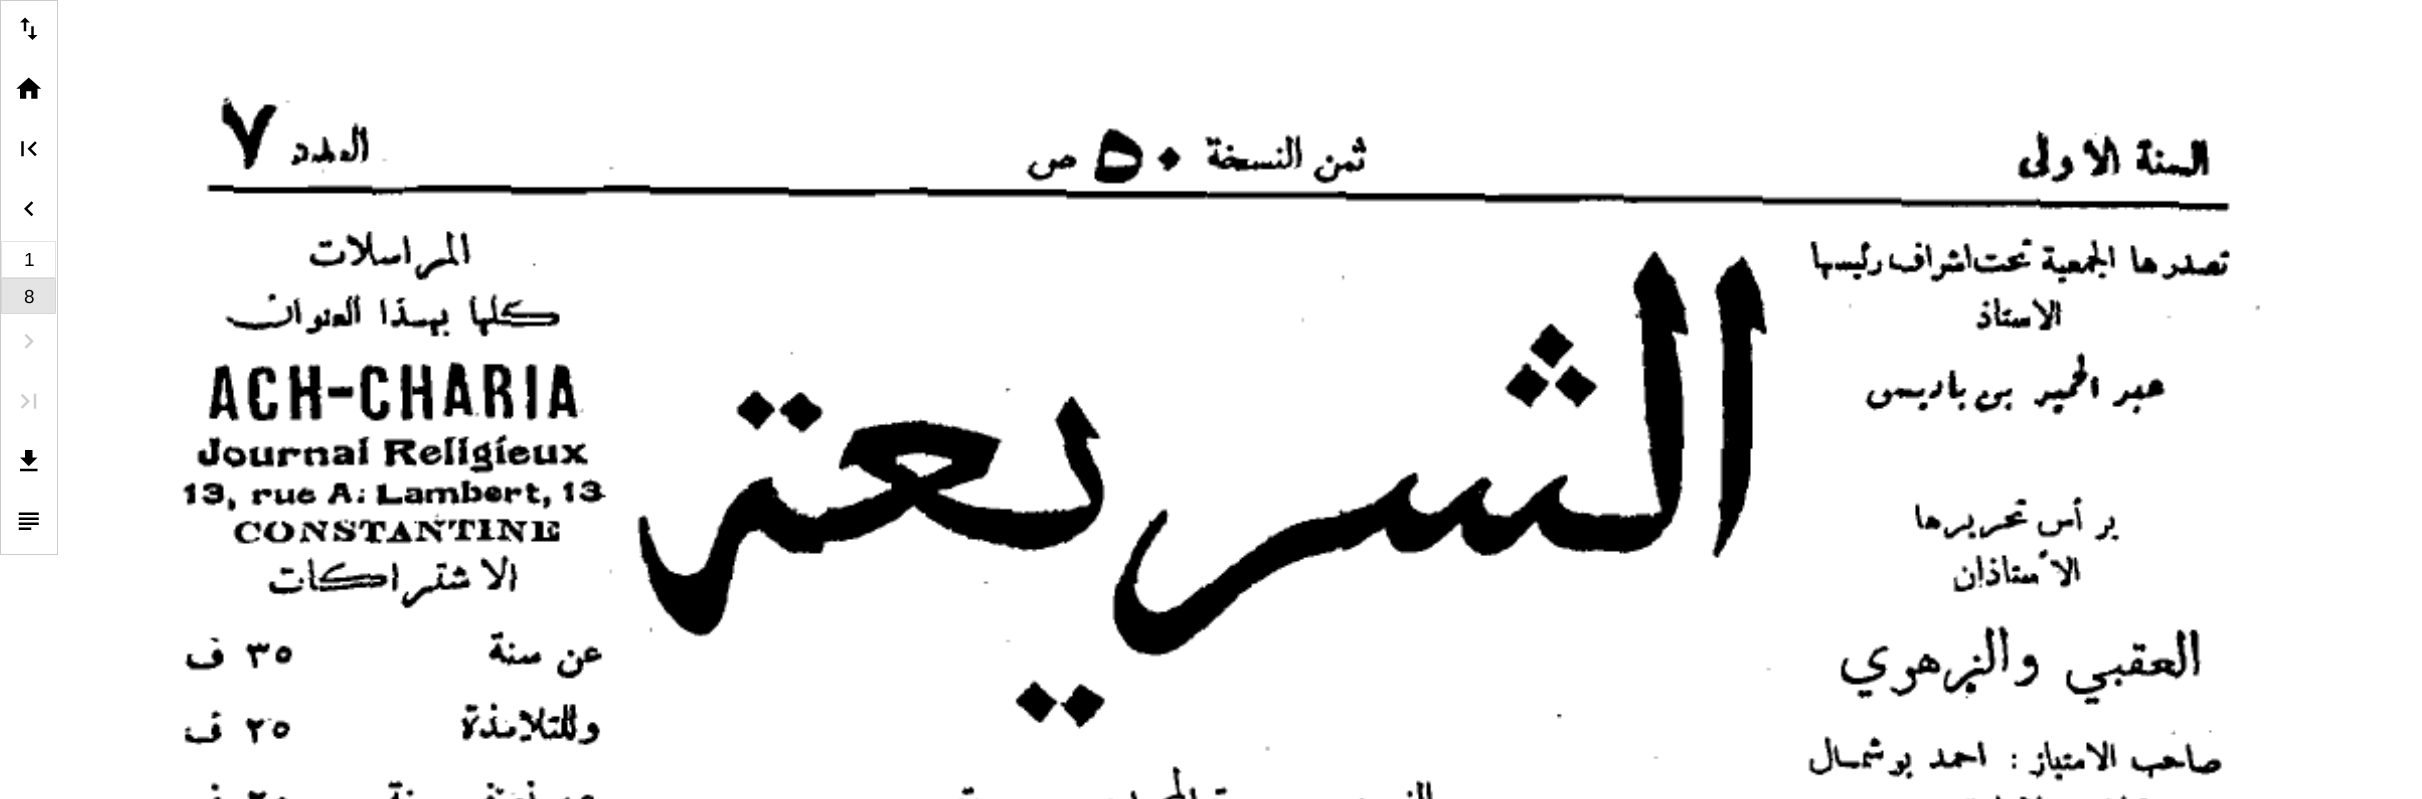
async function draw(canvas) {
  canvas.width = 2422;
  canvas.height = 799;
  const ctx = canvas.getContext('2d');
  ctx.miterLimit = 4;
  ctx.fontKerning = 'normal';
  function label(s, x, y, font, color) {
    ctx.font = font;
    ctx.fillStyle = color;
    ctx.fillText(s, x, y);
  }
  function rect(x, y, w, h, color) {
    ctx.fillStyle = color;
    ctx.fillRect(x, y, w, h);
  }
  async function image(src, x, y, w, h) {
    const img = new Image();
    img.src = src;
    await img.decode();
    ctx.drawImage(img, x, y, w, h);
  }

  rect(0, 0, 2422, 799, '#fff');
  ctx.strokeStyle = '#ccc';
  ctx.strokeRect(0.5, 0.5, 57, 554);
  await image('assets/img1.png', 20, 17, 18, 23);
  await image('assets/img2.png', 16, 77, 26, 22);
  await image('assets/img3.png', 21, 141, 16, 16);
  await image('assets/img4.png', 24, 201, 10, 16);
  ctx.strokeStyle = '#e4e4e4';
  ctx.strokeRect(1.5, 241.5, 54, 36);
  label('1', 24, 266, '19px Liberation Sans', '#000');
  ctx.fillStyle = '#e4e4e4';
  ctx.beginPath();
  ctx.rect(1.5, 278.5, 54, 35);
  ctx.fill();
  ctx.strokeStyle = '#d6d6d6';
  ctx.stroke();
  label('8', 24, 303, '19px Liberation Sans', '#000');
  await image('assets/img5.png', 24, 334, 10, 15);
  await image('assets/img6.png', 21, 393, 16, 16);
  await image('assets/img7.png', 20, 450, 18, 22);
  await image('assets/img8.png', 18, 512, 21, 18);
  await image('assets/img9.png', 182, 96, 2079, 703);
}

draw(document.querySelector('canvas'));
